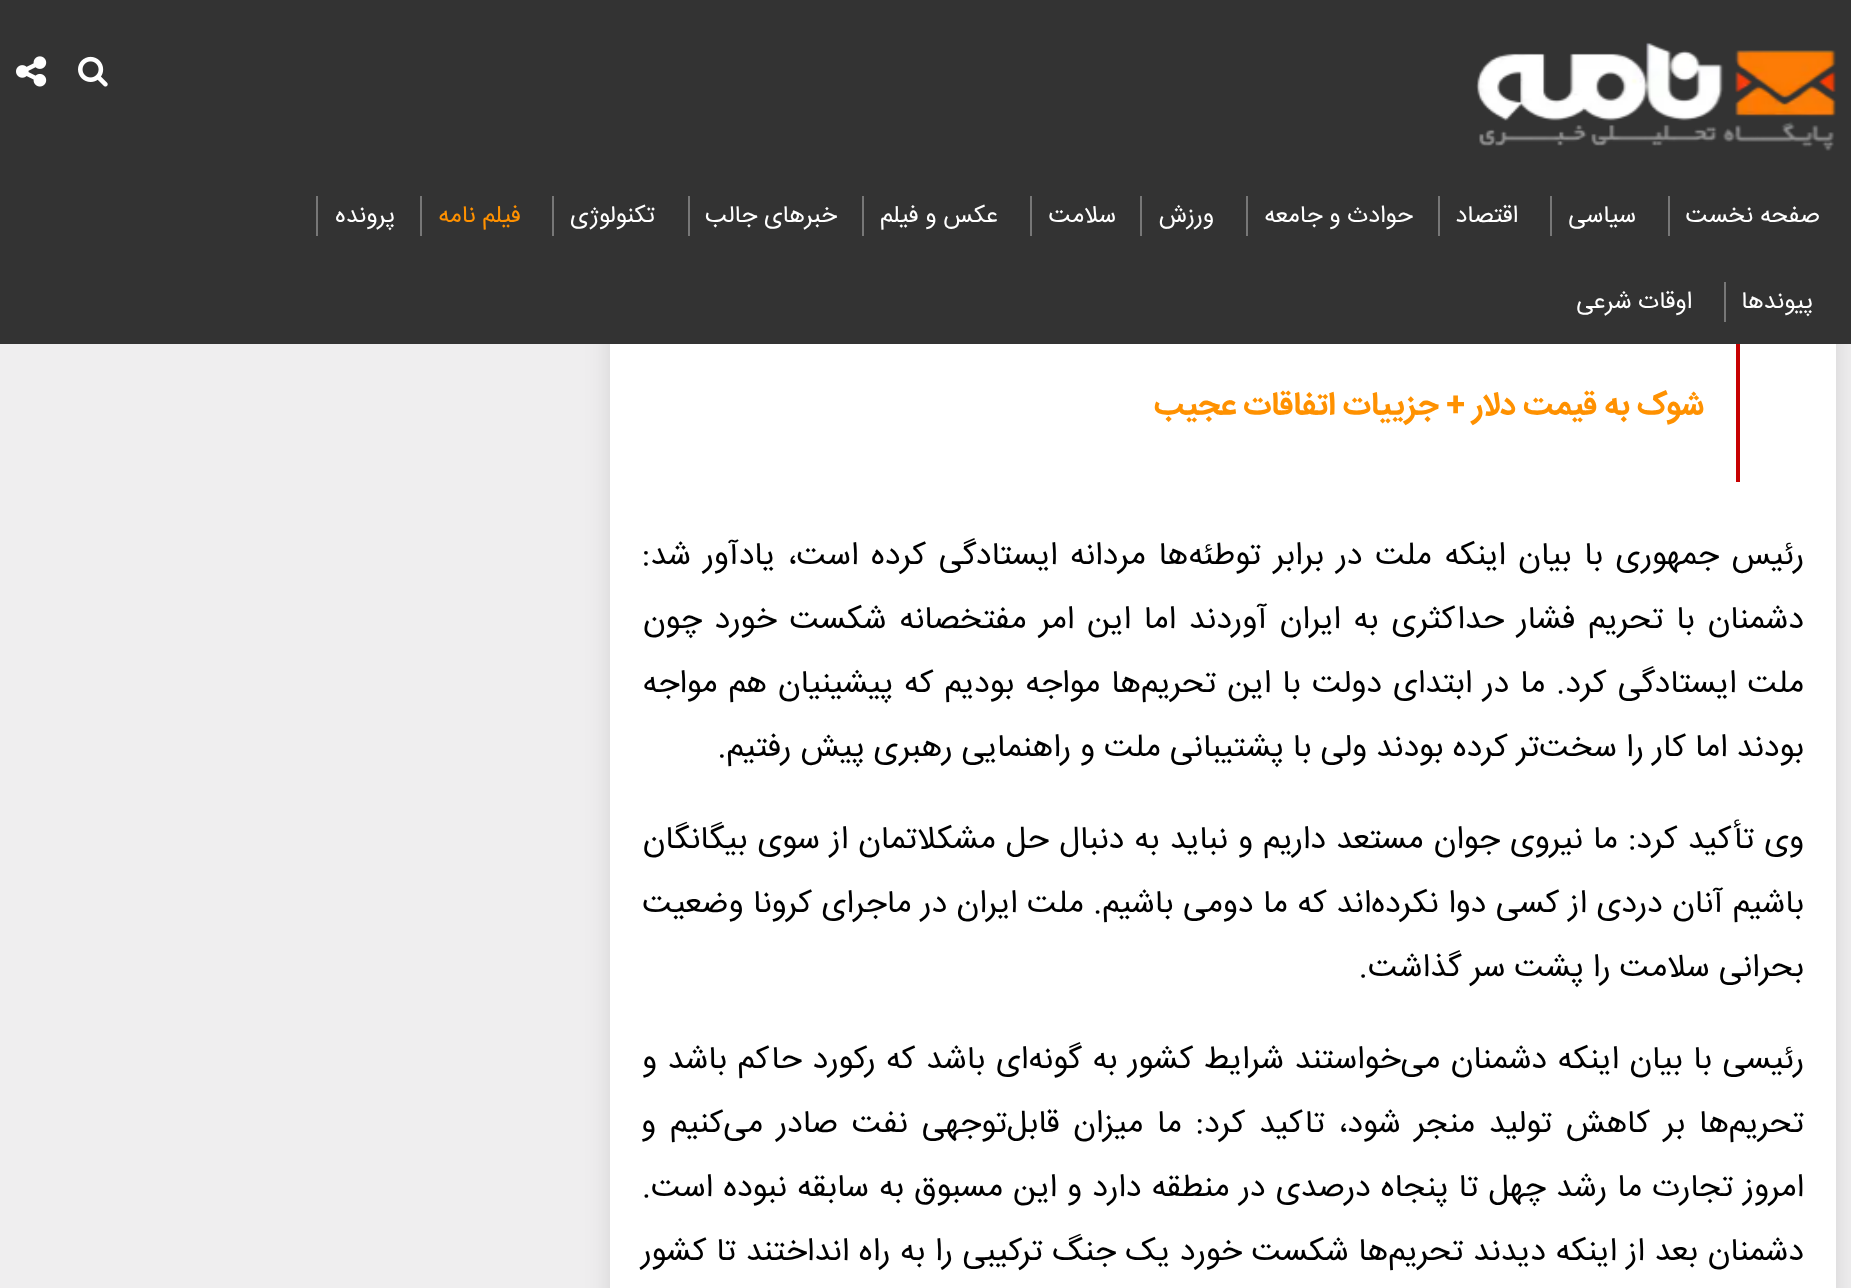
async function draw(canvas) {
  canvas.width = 1851;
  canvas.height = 1288;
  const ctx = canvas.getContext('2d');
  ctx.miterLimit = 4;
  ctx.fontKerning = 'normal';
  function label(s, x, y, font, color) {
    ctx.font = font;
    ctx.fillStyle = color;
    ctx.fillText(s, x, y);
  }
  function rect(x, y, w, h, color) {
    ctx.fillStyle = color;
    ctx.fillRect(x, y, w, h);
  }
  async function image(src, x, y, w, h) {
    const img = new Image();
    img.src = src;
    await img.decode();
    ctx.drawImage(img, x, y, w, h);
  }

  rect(0, 0, 1851, 1288, '#efeeef');
  ctx.fillStyle = '#0000001c';
  ctx.filter = 'blur(13px)';
  ctx.beginPath();
  ctx.rect(610, -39, 1226, 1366);
  ctx.fill();
  ctx.filter = 'none';
  rect(0, 0, 1851, 344, '#333');
  await image('assets/img1.png', 78, 56, 30, 31);
  await image('assets/img2.png', 16, 56, 31, 31);
  await image('assets/img3.png', 1476, 42, 360, 109);
  ctx.direction = 'rtl';
  label('صفحه نخست', 1820, 222, '24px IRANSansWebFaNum', '#fff');
  rect(1668, 196, 2, 40, '#777');
  label('سیاسی', 1636, 222, '24px IRANSansWebFaNum', '#fff');
  rect(1550, 196, 2, 40, '#777');
  label('اقتصاد', 1518, 222, '24px IRANSansWebFaNum', '#fff');
  rect(1438, 196, 2, 40, '#777');
  label('حوادث و جامعه', 1413, 222, '24px IRANSansWebFaNum', '#fff');
  rect(1246, 196, 2, 40, '#777');
  label('ورزش', 1214, 222, '24px IRANSansWebFaNum', '#fff');
  rect(1140, 196, 2, 40, '#777');
  label('سلامت', 1116, 222, '24px IRANSansWebFaNum', '#fff');
  rect(1030, 196, 2, 40, '#777');
  label('عکس و فیلم', 998, 222, '24px IRANSansWebFaNum', '#fff');
  rect(862, 196, 2, 40, '#777');
  label('خبرهای جالب', 837, 222, '24px IRANSansWebFaNum', '#fff');
  rect(688, 196, 2, 40, '#777');
  label('تکنولوژی', 655, 222, '24px IRANSansWebFaNum', '#fff');
  rect(552, 196, 2, 40, '#777');
  label('فیلم نامه', 521, 222, '24px IRANSansWebFaNum', '#ff9100');
  rect(420, 196, 2, 40, '#777');
  label('پرونده', 395, 222, '24px IRANSansWebFaNum', '#fff');
  rect(316, 196, 2, 40, '#777');
  label('پیوندها', 1813, 308, '24px IRANSansWebFaNum', '#fff');
  rect(1724, 282, 2, 40, '#777');
  label('اوقات شرعی', 1692, 308, '24px IRANSansWebFaNum', '#fff');
  rect(610, 344, 1226, 944, '#fff');
  rect(1736, 344, 4, 138, '#c70102');
  label('شوک به قیمت دلار + جزییات اتفاقات عجیب', 1704, 414, 'bold 32px IRANSansWebFaNum', '#ff9100');
  ctx.wordSpacing = '3.6px';
  label('رئیس جمهوری با بیان اینکه ملت در برابر توطئه‌ها مردانه ایستادگی کرده است، یادآور شد:', 1804, 564, '32px IRANSansWebFaNum', '#000');
  ctx.wordSpacing = '3.75px';
  label('دشمنان با تحریم فشار حداکثری به ایران آوردند اما این امر مفتخصانه شکست خورد چون', 1804, 628, '32px IRANSansWebFaNum', '#000');
  ctx.wordSpacing = '2px';
  label('ملت ایستادگی کرد. ما در ابتدای دولت با این تحریم‌ها مواجه بودیم که پیشینیان هم مواجه', 1804, 692, '32px IRANSansWebFaNum', '#000');
  ctx.wordSpacing = '0px';
  label('بودند اما کار را سخت‌تر کرده بودند ولی با پشتیبانی ملت و راهنمایی رهبری پیش رفتیم.', 1804, 756, '32px IRANSansWebFaNum', '#000');
  ctx.wordSpacing = '1.1px';
  label('وی تأکید کرد: ما نیروی جوان مستعد داریم و نباید به دنبال حل مشکلاتمان از سوی بیگانگان', 1804, 848, '32px IRANSansWebFaNum', '#000');
  ctx.wordSpacing = '0.5px';
  label('باشیم آنان دردی از کسی دوا نکرده‌اند که ما دومی باشیم. ملت ایران در ماجرای کرونا وضعیت', 1804, 912, '32px IRANSansWebFaNum', '#000');
  ctx.wordSpacing = '0px';
  label('بحرانی سلامت را پشت سر گذاشت.', 1804, 976, '32px IRANSansWebFaNum', '#000');
  ctx.wordSpacing = '1.5px';
  label('رئیسی با بیان اینکه دشمنان می‌خواستند شرایط کشور به گونه‌ای باشد که رکورد حاکم باشد و', 1804, 1068, '32px IRANSansWebFaNum', '#000');
  ctx.wordSpacing = '4.75px';
  label('تحریم‌ها بر کاهش تولید منجر شود، تاکید کرد: ما میزان قابل‌توجهی نفت صادر می‌کنیم و', 1804, 1132, '32px IRANSansWebFaNum', '#000');
  ctx.wordSpacing = '1.1px';
  label('امروز تجارت ما رشد چهل تا پنجاه درصدی در منطقه دارد و این مسبوق به سابقه نبوده است.', 1804, 1196, '32px IRANSansWebFaNum', '#000');
  ctx.wordSpacing = '0.7px';
  label('دشمنان بعد از اینکه دیدند تحریم‌ها شکست خورد یک جنگ ترکیبی را به راه انداختند تا کشور', 1804, 1260, '32px IRANSansWebFaNum', '#000');
}

draw(document.querySelector('canvas'));
